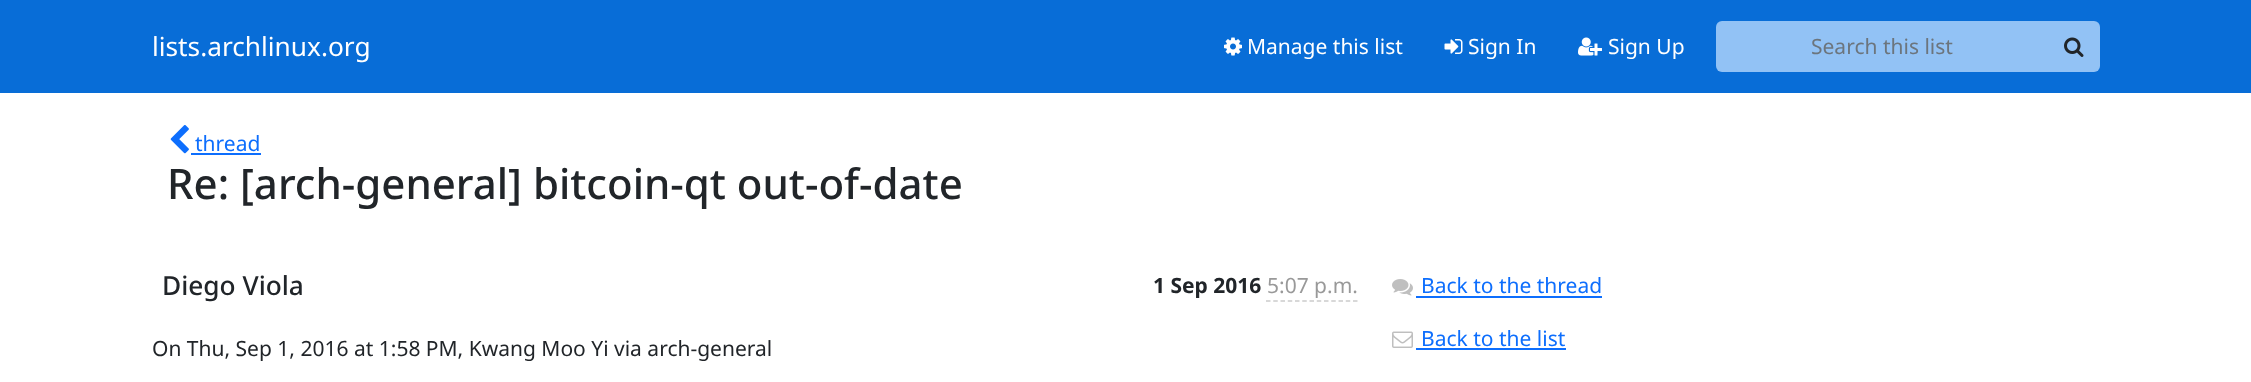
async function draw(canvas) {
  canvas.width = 2251;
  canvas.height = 382;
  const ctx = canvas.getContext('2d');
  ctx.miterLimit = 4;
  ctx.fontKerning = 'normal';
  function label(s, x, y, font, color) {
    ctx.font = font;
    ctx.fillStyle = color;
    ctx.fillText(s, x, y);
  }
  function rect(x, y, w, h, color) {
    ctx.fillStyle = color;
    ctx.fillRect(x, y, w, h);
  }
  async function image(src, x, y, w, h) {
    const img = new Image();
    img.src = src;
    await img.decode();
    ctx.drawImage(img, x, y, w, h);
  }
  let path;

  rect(0, 0, 2251, 382, '#fff');
  rect(0, 0, 2251, 93, '#086dd7');
  label('lists.archlinux.org', 152, 56, '26.25px Noto Sans', '#fff');
  await image('assets/img1.png', 1224, 37, 18, 19);
  label('Manage this list', 1247, 54, '21px Noto Sans', '#fff');
  await image('assets/img2.png', 1444, 39, 19, 15);
  label('Sign In', 1468, 54, '21px Noto Sans', '#fff');
  await image('assets/img3.png', 1578, 37, 24, 19);
  label('Sign Up', 1608, 54, '21px Noto Sans', '#fff');
  ctx.fillStyle = '#92c2f5';
  ctx.beginPath();
  ctx.roundRect(1716, 21, 332, 51, [6, 0, 0, 6]);
  ctx.fill();
  label('Search this list', 1811, 54, '21px Noto Sans', '#6c757d');
  ctx.fillStyle = '#92c2f5';
  ctx.beginPath();
  ctx.roundRect(2046, 21, 54, 51, [0, 6, 6, 0]);
  ctx.fill();
  await image('assets/img4.png', 2064, 37, 20, 20);
  await image('assets/img5.png', 170, 125, 19, 29);
  label('thread', 195, 151, '21px Noto Sans', '#0d6efd');
  rect(191, 153, 70, 2, '#0d6efd');
  label('Re: [arch-general] bitcoin-qt out-of-date', 167, 199, '500 42px Noto Sans', '#212529');
  label('Diego Viola', 162, 295, '500 26.25px Noto Sans', '#212529');
  label('1 Sep 2016', 1153, 293, 'bold 21px Noto Sans', '#212529');
  label('5:07 p.m.', 1267, 293, '21px Noto Sans', '#999');
  path = new Path2D('M1266 301H1357.5');
  ctx.strokeStyle = '#ccc';
  ctx.lineWidth = 1.5;
  ctx.setLineDash([4.5, 2.75]);
  ctx.stroke(path);
  label('On Thu, Sep 1, 2016 at 1:58 PM, Kwang Moo Yi via arch-general', 152, 356, '21px Noto Sans', '#212529');
  await image('assets/img6.png', 1392, 279, 21, 17);
  label('Back to the thread', 1421, 293, '21px Noto Sans', '#0d6efd');
  rect(1416, 296, 186, 2, '#0d6efd');
  await image('assets/img7.png', 1392, 331, 21, 17);
  label('Back to the list', 1421, 346, '21px Noto Sans', '#0d6efd');
  rect(1416, 348, 150, 2, '#0d6efd');
}

draw(document.querySelector('canvas'));
